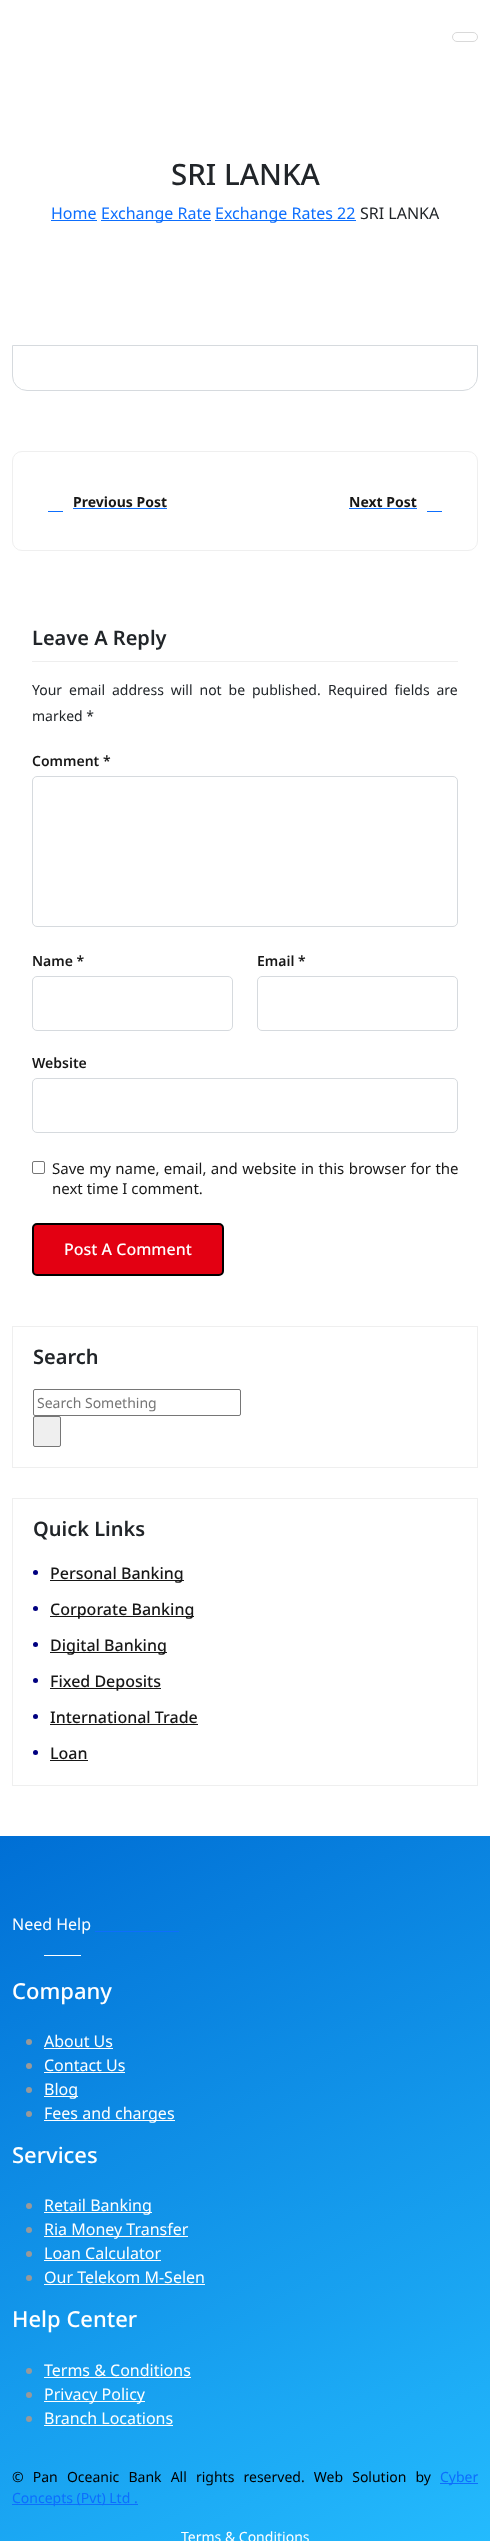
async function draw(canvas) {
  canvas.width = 490;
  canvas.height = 2541;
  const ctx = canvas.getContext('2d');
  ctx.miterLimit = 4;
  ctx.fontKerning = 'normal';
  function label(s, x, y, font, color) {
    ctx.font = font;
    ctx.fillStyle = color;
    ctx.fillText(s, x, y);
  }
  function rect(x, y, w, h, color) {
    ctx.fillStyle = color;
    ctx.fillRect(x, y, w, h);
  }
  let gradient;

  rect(0, 0, 490, 2541, '#fff');
  ctx.beginPath();
  ctx.roundRect(452.5, 32.5, 25, 9, 4.5);
  ctx.strokeStyle = '#d9d9d9';
  ctx.stroke();
  label('SRI LANKA', 171, 185, '500 29.5px Noto Sans', '#212529');
  label('Home', 51, 219, '16px Noto Sans', '#0d6efd');
  rect(51, 220, 46, 1, '#0d6efd');
  rect(101, 220, 110, 1, '#0d6efd');
  label('Exchange Rate', 101, 219, '16px Noto Sans', '#0d6efd');
  rect(215, 220, 141, 1, '#0d6efd');
  label('Exchange Rates 22', 215, 219, '16px Noto Sans', '#0d6efd');
  label('SRI LANKA', 360, 219, '16px Noto Sans', '#212529');
  ctx.beginPath();
  ctx.roundRect(12.5, 345.5, 465, 45, [0, 0, 14.5, 14.5]);
  ctx.strokeStyle = '#d6dade';
  ctx.stroke();
  ctx.beginPath();
  ctx.roundRect(12.5, 451.5, 465, 99, 9.5);
  ctx.strokeStyle = '#efefef';
  ctx.stroke();
  label('Previous Post', 73, 507, 'bold 14px Noto Sans', '#171717');
  rect(73, 508, 94, 1, '#0d6efd');
  rect(48, 511, 15, 1, '#0d6efd');
  label('Next Post', 349, 507, 'bold 14px Noto Sans', '#171717');
  rect(349, 508, 68, 1, '#0d6efd');
  rect(427, 511, 15, 1, '#0d6efd');
  rect(32, 661, 426, 1, '#eee');
  label('Leave A Reply', 32, 645, '600 20px Noto Sans', '#212529');
  ctx.wordSpacing = '3.25px';
  label('Your email address will not be published.', 32, 695, '14px Noto Sans', '#212529');
  label('Required fields are', 328, 695, '14px Noto Sans', '#212529');
  ctx.wordSpacing = '0px';
  label('marked *', 32, 721, '14px Noto Sans', '#212529');
  label('Comment *', 32, 766, '600 14px Noto Sans', '#171717');
  ctx.beginPath();
  ctx.roundRect(32.5, 776.5, 425, 150, 4.5);
  ctx.strokeStyle = '#d6dade';
  ctx.stroke();
  label('Name *', 32, 966, '600 14px Noto Sans', '#171717');
  ctx.beginPath();
  ctx.roundRect(32.5, 976.5, 200, 54, 4.5);
  ctx.stroke();
  label('Email *', 257, 966, '600 14px Noto Sans', '#171717');
  ctx.beginPath();
  ctx.roundRect(257.5, 976.5, 200, 54, 4.5);
  ctx.stroke();
  label('Website', 32, 1068, '600 14px Noto Sans', '#171717');
  ctx.beginPath();
  ctx.roundRect(32.5, 1078.5, 425, 54, 4.5);
  ctx.stroke();
  ctx.beginPath();
  ctx.roundRect(32.5, 1161.5, 12, 12, 1.5);
  ctx.strokeStyle = '#767676';
  ctx.stroke();
  ctx.wordSpacing = '0.5px';
  label('Save my name, email, and website in this browser for the', 52, 1174, '15px Noto Sans', '#171717');
  ctx.wordSpacing = '0px';
  label('next time I comment.', 52, 1194, '15px Noto Sans', '#171717');
  ctx.fillStyle = '#e30012';
  ctx.beginPath();
  ctx.roundRect(33, 1224, 190, 51, 4);
  ctx.fill();
  ctx.strokeStyle = '#000';
  ctx.lineWidth = 2;
  ctx.stroke();
  label('Post A Comment', 64, 1255, '500 16px Noto Sans', '#fff');
  ctx.strokeStyle = '#efefef';
  ctx.lineWidth = 1;
  ctx.strokeRect(12.5, 1326.5, 465, 141);
  label('Search', 33, 1364, '600 20px Noto Sans', '#212529');
  ctx.beginPath();
  ctx.roundRect(33.5, 1389.5, 207, 26, 1.5);
  ctx.strokeStyle = '#767676';
  ctx.stroke();
  label('Search Something', 37, 1408, '14px Noto Sans', '#757575');
  ctx.fillStyle = '#efefef';
  ctx.beginPath();
  ctx.roundRect(33.5, 1416.5, 27, 30, 1.5);
  ctx.fill();
  ctx.stroke();
  ctx.strokeStyle = '#efefef';
  ctx.strokeRect(12.5, 1498.5, 465, 287);
  label('Quick Links', 33, 1536, '600 20px Noto Sans', '#212529');
  ctx.fillStyle = '#000080';
  ctx.beginPath();
  ctx.arc(35.5, 1572.5, 2.5, 0, 2 * Math.PI);
  ctx.fill();
  rect(50, 1580, 134, 1, '#171717');
  label('Personal Banking', 50, 1579, '500 16px Noto Sans', '#171717');
  ctx.fillStyle = '#000080';
  ctx.beginPath();
  ctx.arc(35.5, 1608.5, 2.5, 0, 2 * Math.PI);
  ctx.fill();
  rect(50, 1616, 144, 1, '#171717');
  label('Corporate Banking', 50, 1615, '500 16px Noto Sans', '#171717');
  ctx.fillStyle = '#000080';
  ctx.beginPath();
  ctx.arc(35.5, 1644.5, 2.5, 0, 2 * Math.PI);
  ctx.fill();
  rect(50, 1652, 117, 1, '#171717');
  label('Digital Banking', 50, 1651, '500 16px Noto Sans', '#171717');
  ctx.fillStyle = '#000080';
  ctx.beginPath();
  ctx.arc(35.5, 1680.5, 2.5, 0, 2 * Math.PI);
  ctx.fill();
  rect(50, 1688, 111, 1, '#171717');
  label('Fixed Deposits', 50, 1687, '500 16px Noto Sans', '#171717');
  ctx.fillStyle = '#000080';
  ctx.beginPath();
  ctx.arc(35.5, 1716.5, 2.5, 0, 2 * Math.PI);
  ctx.fill();
  label('International Trade', 50, 1723, '500 16px Noto Sans', '#171717');
  rect(50, 1724, 148, 1, '#171717');
  ctx.fillStyle = '#000080';
  ctx.beginPath();
  ctx.arc(35.5, 1752.5, 2.5, 0, 2 * Math.PI);
  ctx.fill();
  label('Loan', 50, 1759, '500 16px Noto Sans', '#171717');
  rect(50, 1760, 38, 1, '#171717');
  gradient = ctx.createLinearGradient(46, 1813, 444, 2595);
  gradient.addColorStop(0, '#006fd5');
  gradient.addColorStop(1, '#25bdff');
  ctx.fillStyle = gradient;
  ctx.fillRect(0, 1836, 490, 705);
  label('Need Help', 12, 1930, '16px Noto Sans', '#fff');
  rect(95, 1931, 84, 1, '#0d6efd');
  rect(44, 1955, 37, 1, '#fff');
  label('Company', 12, 1999, '500 22px Noto Sans', '#fff');
  ctx.fillStyle = '#999';
  ctx.beginPath();
  ctx.arc(29, 2042, 3, 0, 2 * Math.PI);
  ctx.fill();
  label('About Us', 44, 2047, '16px Noto Sans', '#fff');
  rect(44, 2048, 69, 1, '#fff');
  ctx.fillStyle = '#999';
  ctx.beginPath();
  ctx.arc(29, 2066, 3, 0, 2 * Math.PI);
  ctx.fill();
  label('Contact Us', 44, 2071, '16px Noto Sans', '#fff');
  rect(44, 2072, 81, 1, '#fff');
  ctx.fillStyle = '#999';
  ctx.beginPath();
  ctx.arc(29, 2090, 3, 0, 2 * Math.PI);
  ctx.fill();
  rect(44, 2096, 34, 1, '#fff');
  label('Blog', 44, 2095, '16px Noto Sans', '#fff');
  ctx.fillStyle = '#999';
  ctx.beginPath();
  ctx.arc(29, 2114, 3, 0, 2 * Math.PI);
  ctx.fill();
  rect(44, 2120, 131, 1, '#fff');
  label('Fees and charges', 44, 2119, '16px Noto Sans', '#fff');
  label('Services', 12, 2163, '500 22px Noto Sans', '#fff');
  ctx.fillStyle = '#999';
  ctx.beginPath();
  ctx.arc(29, 2206, 3, 0, 2 * Math.PI);
  ctx.fill();
  rect(44, 2212, 108, 1, '#fff');
  label('Retail Banking', 44, 2211, '16px Noto Sans', '#fff');
  ctx.fillStyle = '#999';
  ctx.beginPath();
  ctx.arc(29, 2230, 3, 0, 2 * Math.PI);
  ctx.fill();
  rect(44, 2236, 144, 1, '#fff');
  label('Ria Money Transfer', 44, 2235, '16px Noto Sans', '#fff');
  ctx.fillStyle = '#999';
  ctx.beginPath();
  ctx.arc(29, 2254, 3, 0, 2 * Math.PI);
  ctx.fill();
  label('Loan Calculator', 44, 2259, '16px Noto Sans', '#fff');
  rect(44, 2260, 117, 1, '#fff');
  ctx.fillStyle = '#999';
  ctx.beginPath();
  ctx.arc(29, 2278, 3, 0, 2 * Math.PI);
  ctx.fill();
  label('Our Telekom M-Selen', 44, 2283, '16px Noto Sans', '#fff');
  rect(44, 2284, 161, 1, '#fff');
  label('Help Center', 12, 2327, '500 22px Noto Sans', '#fff');
  ctx.fillStyle = '#999';
  ctx.beginPath();
  ctx.arc(29, 2371, 3, 0, 2 * Math.PI);
  ctx.fill();
  label('Terms & Conditions', 44, 2376, '16px Noto Sans', '#fff');
  rect(44, 2377, 147, 1, '#fff');
  ctx.fillStyle = '#999';
  ctx.beginPath();
  ctx.arc(29, 2395, 3, 0, 2 * Math.PI);
  ctx.fill();
  rect(44, 2401, 101, 1, '#fff');
  label('Privacy Policy', 44, 2400, '16px Noto Sans', '#fff');
  ctx.fillStyle = '#999';
  ctx.beginPath();
  ctx.arc(29, 2419, 3, 0, 2 * Math.PI);
  ctx.fill();
  label('Branch Locations', 44, 2424, '16px Noto Sans', '#fff');
  rect(44, 2425, 129, 1, '#fff');
  ctx.wordSpacing = '5.5px';
  label('© Pan Oceanic Bank All rights reserved. Web Solution by', 12, 2482, '14px Noto Sans', '#000');
  rect(440, 2483, 38, 1, '#0d6efd');
  ctx.wordSpacing = '0px';
  label('Cyber', 440, 2482, '14px Noto Sans', '#0d6efd');
  rect(12, 2504, 126, 1, '#0d6efd');
  label('Concepts (Pvt) Ltd .', 12, 2503, '14px Noto Sans', '#0d6efd');
  label('Terms & Conditions', 181, 2542, '14px Noto Sans', '#fff');
}

draw(document.querySelector('canvas'));
